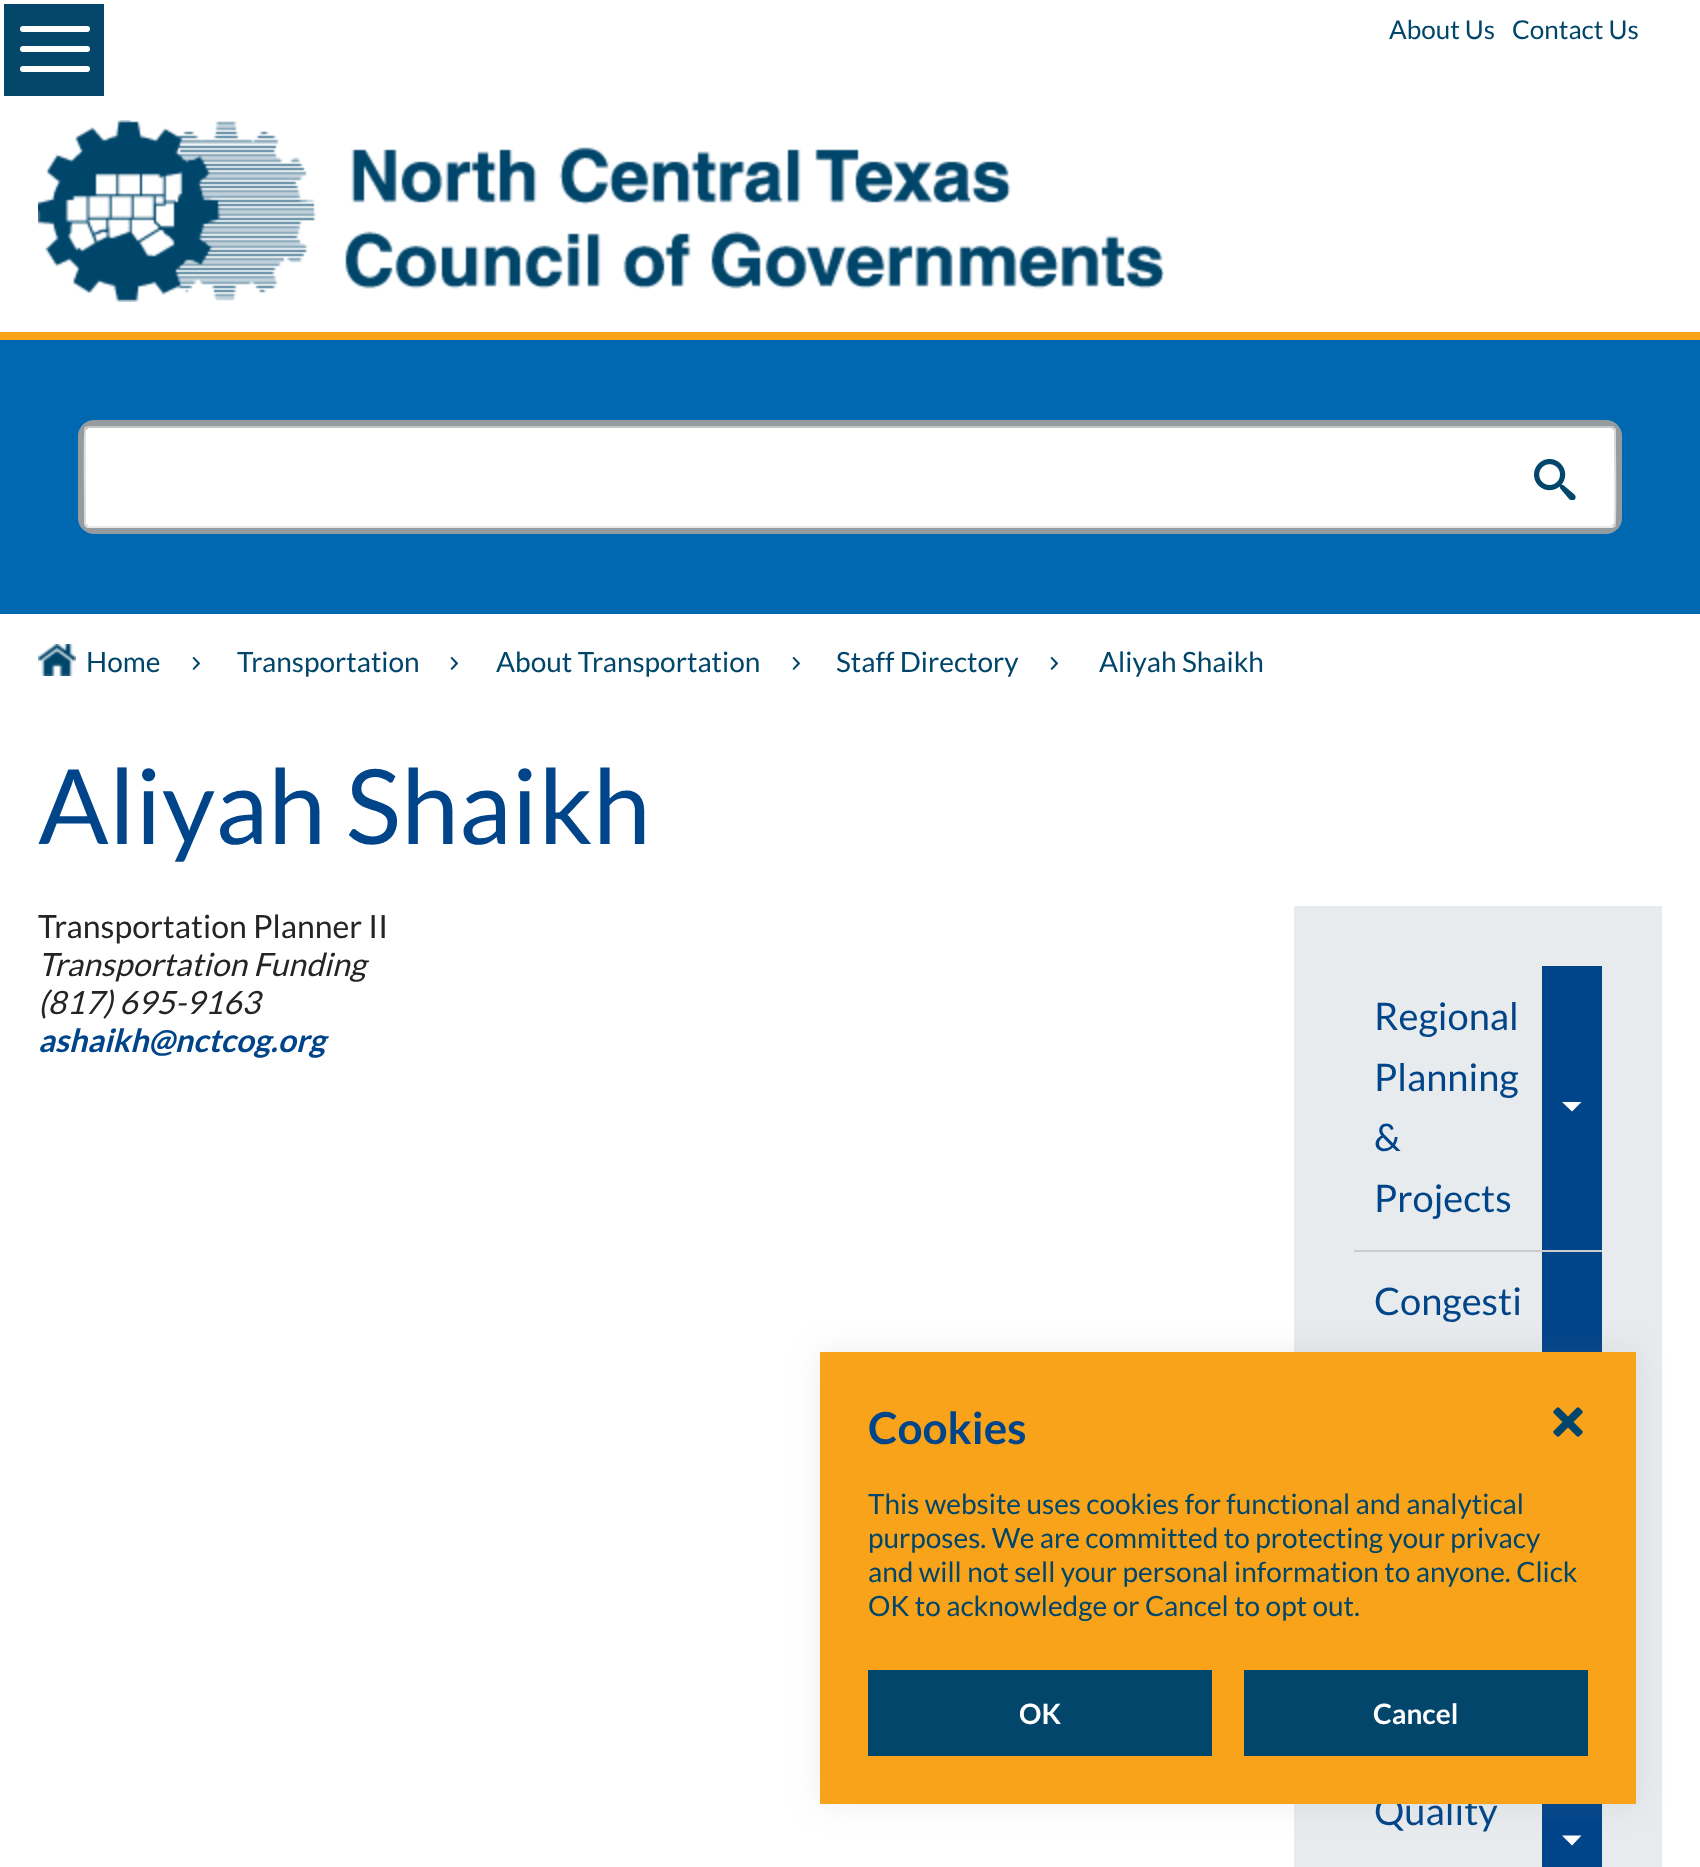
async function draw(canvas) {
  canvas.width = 1700;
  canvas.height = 1867;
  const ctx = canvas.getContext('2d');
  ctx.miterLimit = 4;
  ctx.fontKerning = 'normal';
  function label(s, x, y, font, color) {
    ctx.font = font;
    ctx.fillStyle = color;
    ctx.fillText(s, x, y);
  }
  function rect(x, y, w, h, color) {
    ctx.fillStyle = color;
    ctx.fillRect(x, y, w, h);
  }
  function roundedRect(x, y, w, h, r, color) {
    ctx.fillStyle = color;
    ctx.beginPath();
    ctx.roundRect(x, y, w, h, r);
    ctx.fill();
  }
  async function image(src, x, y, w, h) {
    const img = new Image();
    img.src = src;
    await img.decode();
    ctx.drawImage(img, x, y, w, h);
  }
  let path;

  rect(0, 0, 1700, 1867, '#fff');
  rect(0, 332, 1700, 8, '#f8a31a');
  rect(4, 4, 100, 92, '#05466b');
  roundedRect(20, 26, 70, 6, 3, '#fff');
  roundedRect(20, 46, 70, 6, 3, '#fff');
  roundedRect(20, 66, 70, 6, 3, '#fff');
  label('About Us', 1389, 39, '26px Lato', '#00456a');
  label('Contact Us', 1512, 39, '26px Lato', '#00456a');
  await image('assets/img1.png', 38, 120, 1126, 182);
  rect(0, 340, 1700, 274, '#0067b1');
  ctx.fillStyle = '#fff';
  ctx.beginPath();
  ctx.roundRect(81, 423, 1538, 108, 13);
  ctx.fill();
  ctx.strokeStyle = '#959c9f';
  ctx.lineWidth = 6;
  ctx.stroke();
  path = new Path2D('M86 428L88 427H1612L1614 428');
  ctx.strokeStyle = '#c6c6c6';
  ctx.lineWidth = 2;
  ctx.stroke(path);
  path = new Path2D('M1614 428L1615 430V445.5C1615 454 1616 524 1614.5 526H1614');
  ctx.strokeStyle = '#dadada';
  ctx.stroke(path);
  path = new Path2D('M1614 526L1612 527H88L86 526');
  ctx.strokeStyle = '#eaeaea';
  ctx.stroke(path);
  path = new Path2D('M86 526L85 524V508.5C85 500 84 430 85.5 428H86');
  ctx.strokeStyle = '#dadada';
  ctx.stroke(path);
  await image('assets/img2.png', 1534, 459, 42, 41);
  await image('assets/img3.png', 38, 644, 38, 32);
  label('Home', 86, 672, '28px Lato', '#00456a');
  await image('assets/img4.png', 192, 657, 8, 13);
  label('Transportation', 237, 672, '28px Lato', '#00456a');
  await image('assets/img4.png', 450, 657, 8, 13);
  label('About Transportation', 496, 672, '28px Lato', '#00456a');
  await image('assets/img4.png', 792, 657, 8, 13);
  label('Staff Directory', 836, 672, '28px Lato', '#00456a');
  await image('assets/img4.png', 1050, 657, 8, 13);
  label('Aliyah Shaikh', 1099, 672, '28px Lato', '#00456a');
  label('Aliyah Shaikh', 38, 844, '104px Lato', '#004489');
  label('Transportation Planner II', 38, 938, '32px Lato', '#222425');
  label('Transportation Funding', 38, 976, 'italic 32px Lato', '#222425');
  label('(817) 695-9163', 38, 1014, 'italic 32px Lato', '#222425');
  label('ashaikh@nctcog.org', 38, 1052, 'italic bold 32px Lato', '#004489');
  rect(1294, 906, 368, 961, '#e7ebed');
  label('Regional', 1374, 1030, '38px Lato', '#004489');
  label('Planning', 1374, 1091, '38px Lato', '#004489');
  label('&', 1374, 1151, '38px Lato', '#004489');
  label('Projects', 1374, 1212, '38px Lato', '#004489');
  rect(1542, 966, 60, 284, '#004489');
  ctx.fillStyle = '#fff';
  path = new Path2D('M1562 1102H1581.5L1572 1111.5Z');
  ctx.fill(path);
  rect(1354, 1250, 248, 2, '#ccc');
  label('Congesti', 1374, 1315, '38px Lato', '#004489');
  rect(1542, 1252, 60, 100, '#004489');
  label('Quality', 1374, 1825, '38px Lato', '#004489');
  rect(1542, 1804, 60, 63, '#004489');
  ctx.fillStyle = '#fff';
  path = new Path2D('M1562 1835.5H1581.5L1572 1845.5Z');
  ctx.fill(path);
  ctx.fillStyle = '#88888826';
  ctx.filter = 'blur(16px)';
  ctx.beginPath();
  ctx.rect(820, 1352, 816, 452);
  ctx.fill();
  ctx.filter = 'none';
  rect(820, 1352, 816, 452, '#f8a31a');
  label('Cookies', 868, 1444, 'bold 44px Lato', '#004489');
  ctx.fillStyle = '#03466c';
  path = new Path2D('M1554 1430.5L1576.5 1408C1577.5 1407 1578.5 1407 1579.5 1408L1582 1410.5C1583 1411.5 1583 1412.5 1582 1413.5L1559.5 1436C1558.5 1437 1557.5 1437 1556.5 1436L1554 1433.5C1553 1432.5 1553 1431.5 1554 1430.5Z');
  ctx.fill(path);
  path = new Path2D('M1559.5 1408L1582 1430.5C1583 1431.5 1583 1432.5 1582 1433.5L1579.5 1436C1578.5 1437 1577.5 1437 1576.5 1436L1554 1413.5C1553 1412.5 1553 1411.5 1554 1410.5L1556.5 1408C1557.5 1407 1558.5 1407 1559.5 1408Z');
  ctx.fill(path);
  label('This website uses cookies for functional and analytical', 868, 1514, '28px Lato', '#00456a');
  label('purposes. We are committed to protecting your privacy', 868, 1548, '28px Lato', '#00456a');
  label('and will not sell your personal information to anyone. Click', 868, 1582, '28px Lato', '#00456a');
  label('OK to acknowledge or Cancel to opt out.', 868, 1616, '28px Lato', '#00456a');
  ctx.fillStyle = '#03466c';
  ctx.beginPath();
  ctx.rect(869, 1671, 342, 84);
  ctx.fill();
  ctx.strokeStyle = '#00456a';
  ctx.stroke();
  label('OK', 1019, 1724, 'bold 28px Lato', '#fff');
  ctx.fillStyle = '#03466c';
  ctx.beginPath();
  ctx.rect(1245, 1671, 342, 84);
  ctx.fill();
  ctx.stroke();
  label('Cancel', 1373, 1724, 'bold 28px Lato', '#fff');
}

draw(document.querySelector('canvas'));
